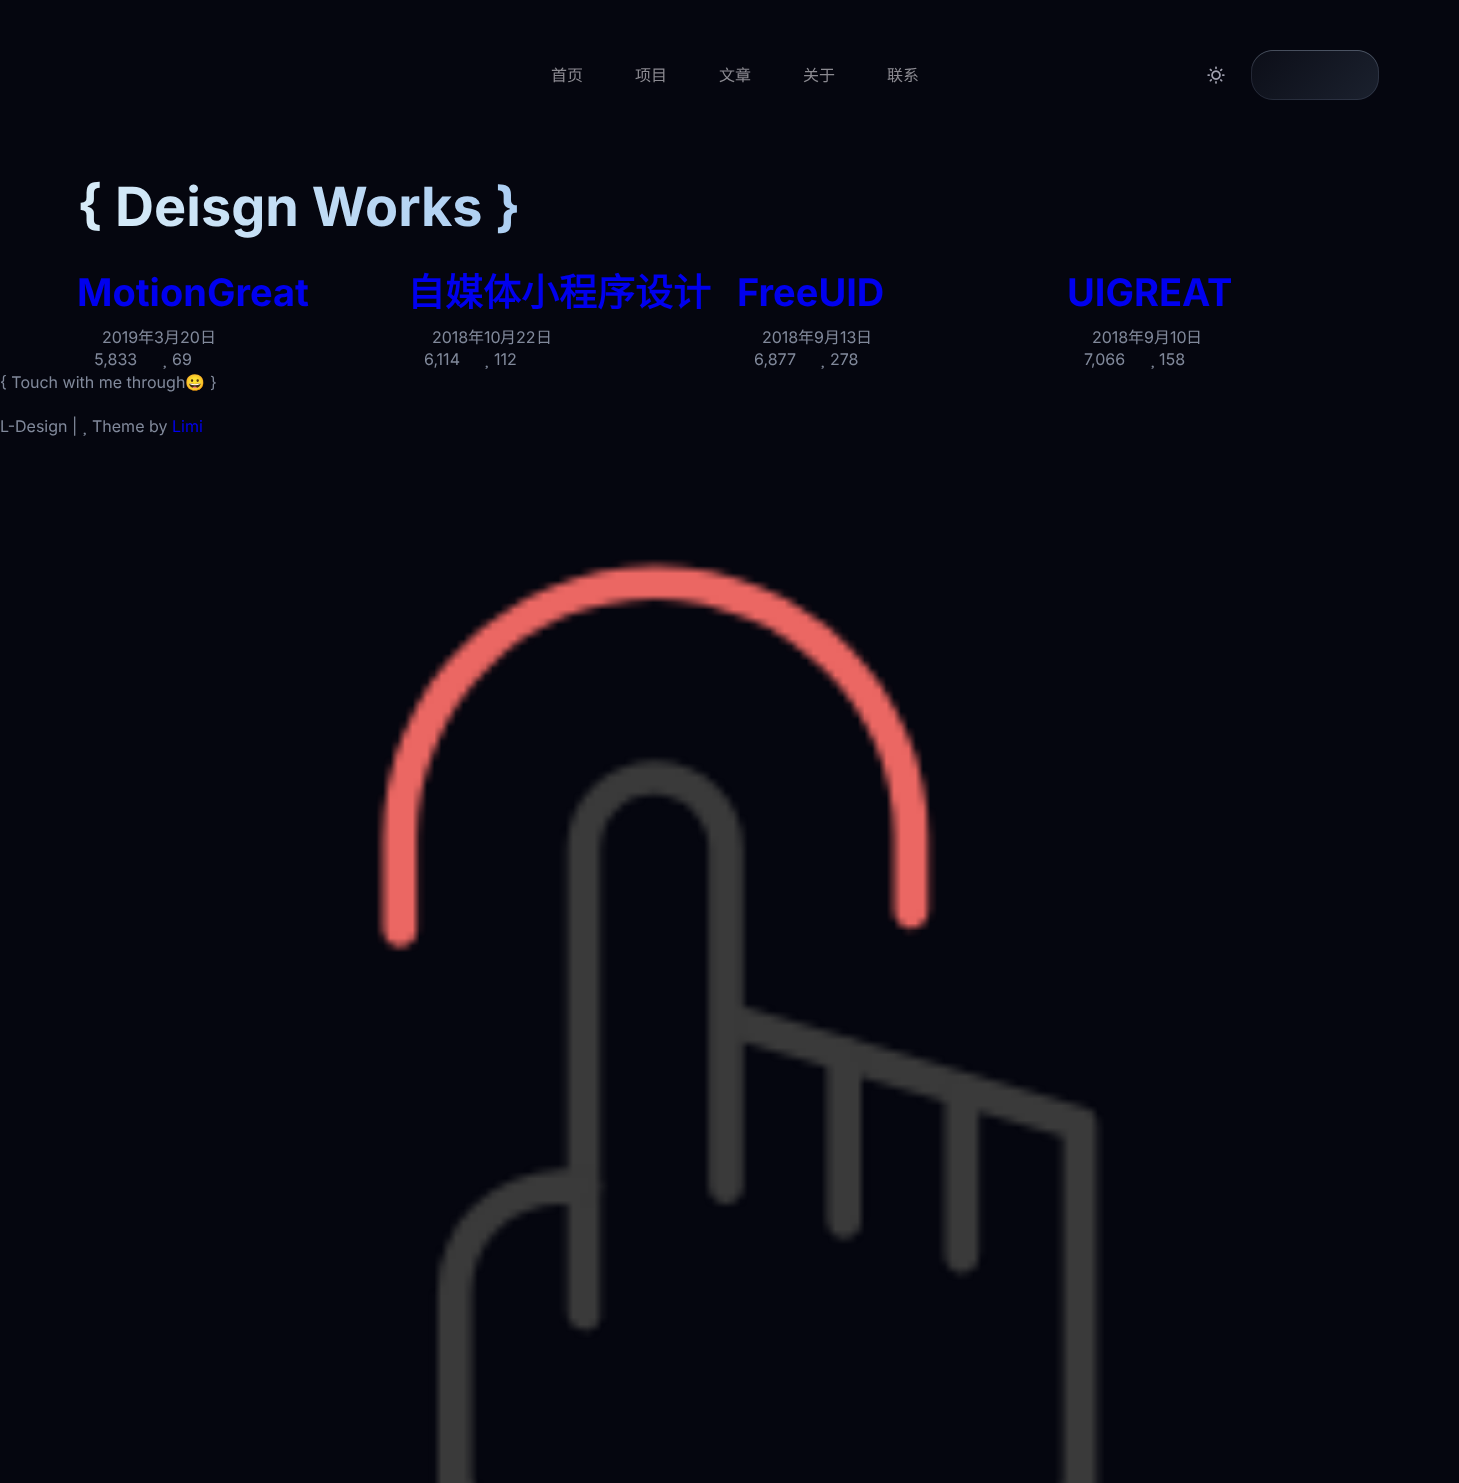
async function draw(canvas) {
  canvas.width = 1459;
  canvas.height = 1483;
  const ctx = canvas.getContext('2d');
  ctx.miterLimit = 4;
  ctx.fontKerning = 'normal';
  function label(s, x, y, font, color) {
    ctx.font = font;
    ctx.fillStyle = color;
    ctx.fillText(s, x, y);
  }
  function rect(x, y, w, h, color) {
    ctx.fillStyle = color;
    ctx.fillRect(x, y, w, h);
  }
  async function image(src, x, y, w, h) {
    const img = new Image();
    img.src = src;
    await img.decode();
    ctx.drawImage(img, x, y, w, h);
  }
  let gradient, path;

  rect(0, 0, 1459, 1483, '#05060f');
  label('首页', 551, 81, '16px Noto Sans CJK SC', '#8b8a91');
  label('项目', 635, 81, '16px Noto Sans CJK SC', '#8b8a91');
  label('文章', 719, 81, '16px Noto Sans CJK SC', '#8b8a91');
  label('关于', 803, 81, '16px Noto Sans CJK SC', '#8b8a91');
  label('联系', 887, 81, '16px Noto Sans CJK SC', '#8b8a91');
  await image('assets/img1.png', 1207, 66, 18, 18);
  gradient = ctx.createLinearGradient(1271, 31, 1360, 120);
  gradient.addColorStop(0, '#0c0e18');
  gradient.addColorStop(1, '#1b212e');
  ctx.fillStyle = gradient;
  ctx.beginPath();
  ctx.roundRect(1251, 50, 128, 50, 22);
  ctx.fill();
  ctx.beginPath();
  ctx.roundRect(1251.5, 50.5, 127, 49, 21.5);
  ctx.strokeStyle = '#bacff71f';
  ctx.stroke();
  ctx.fillStyle = '#d8ecf833';
  path = new Path2D('M1273 51H1357C1369 51 1379 61 1379 73V72C1379 60 1369 50 1357 50H1273C1261 50 1251 60 1251 72V73C1251 61 1261 51 1273 51Z');
  ctx.fill(path);
  ctx.font = 'bold 54px Inter';
  gradient = ctx.createLinearGradient(96, 310, 858, 106);
  gradient.addColorStop(0, '#d8ecf8');
  gradient.addColorStop(0.8, '#98c0ef');
  ctx.fillStyle = gradient;
  ctx.fillText('{ Deisgn Works }', 77, 226);
  label('MotionGreat', 77, 306, 'bold 38px Inter', '#00e');
  label('2019', 102, 343, '16px Inter', '#81899b');
  label('年', 138, 343, '16px Noto Sans CJK SC', '#81899b');
  label('3', 154, 343, '16px Inter', '#81899b');
  label('月', 164, 343, '16px Noto Sans CJK SC', '#81899b');
  label('20', 180, 343, '16px Inter', '#81899b');
  label('日', 200, 343, '16px Noto Sans CJK SC', '#81899b');
  label('5,833', 94, 365, '16px Inter', '#81899b');
  label('69', 172, 365, '16px Inter', '#81899b');
  await image('assets/img2.png', 163, 365, 3, 4);
  label('自媒体小程序设计', 407, 306, 'bold 38px Noto Sans CJK SC', '#00e');
  label('2018', 432, 343, '16px Inter', '#81899b');
  label('年', 468, 343, '16px Noto Sans CJK SC', '#81899b');
  label('10', 484, 343, '16px Inter', '#81899b');
  label('月', 500, 343, '16px Noto Sans CJK SC', '#81899b');
  label('22', 516, 343, '16px Inter', '#81899b');
  label('日', 536, 343, '16px Noto Sans CJK SC', '#81899b');
  label('6,114', 424, 365, '16px Inter', '#81899b');
  label('112', 494, 365, '16px Inter', '#81899b');
  await image('assets/img2.png', 485, 365, 3, 4);
  label('FreeUID', 737, 306, 'bold 38px Inter', '#00e');
  label('2018', 762, 343, '16px Inter', '#81899b');
  label('年', 798, 343, '16px Noto Sans CJK SC', '#81899b');
  label('9', 814, 343, '16px Inter', '#81899b');
  label('月', 824, 343, '16px Noto Sans CJK SC', '#81899b');
  label('13', 840, 343, '16px Inter', '#81899b');
  label('日', 856, 343, '16px Noto Sans CJK SC', '#81899b');
  label('6,877', 754, 365, '16px Inter', '#81899b');
  label('278', 830, 365, '16px Inter', '#81899b');
  await image('assets/img2.png', 821, 365, 3, 4);
  label('UIGREAT', 1067, 306, 'bold 38px Inter', '#00e');
  label('2018', 1092, 343, '16px Inter', '#81899b');
  label('年', 1128, 343, '16px Noto Sans CJK SC', '#81899b');
  label('9', 1144, 343, '16px Inter', '#81899b');
  label('月', 1154, 343, '16px Noto Sans CJK SC', '#81899b');
  label('10', 1170, 343, '16px Inter', '#81899b');
  label('日', 1186, 343, '16px Noto Sans CJK SC', '#81899b');
  label('7,066', 1084, 365, '16px Inter', '#81899b');
  label('158', 1159, 365, '16px Inter', '#81899b');
  await image('assets/img2.png', 1151, 365, 3, 4);
  label('{ Touch with me through', 0, 388, '16px Inter', '#81899b');
  label('😀', 185, 388, '16px Noto Color Emoji', '#81899b');
  label('}', 210, 388, '16px Inter', '#81899b');
  label('L-Design |', 0, 432, '16px Inter', '#81899b');
  label('Theme by', 92, 432, '16px Inter', '#81899b');
  label('Limi', 172, 432, '16px Inter', '#00e');
  await image('assets/img2.png', 83, 432, 3, 4);
  await image('assets/img3.png', 376, 559, 728, 924);
}

draw(document.querySelector('canvas'));
